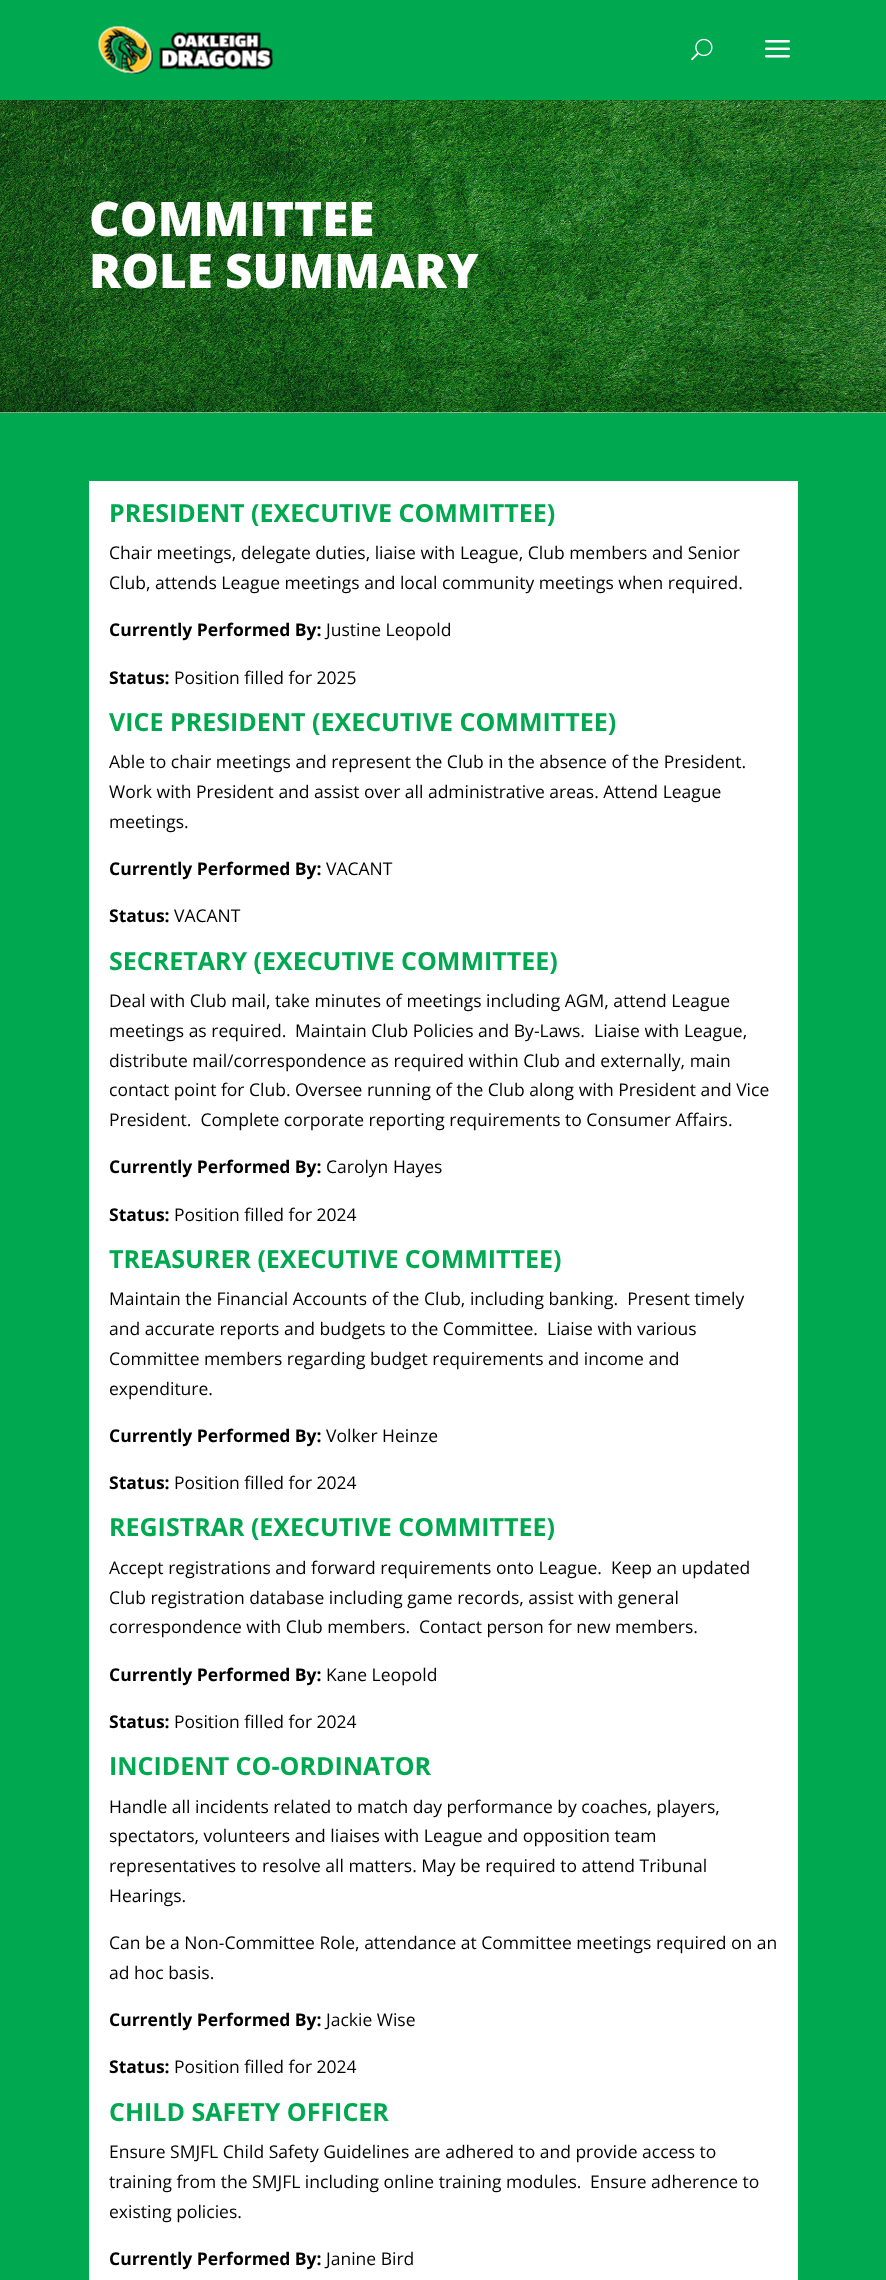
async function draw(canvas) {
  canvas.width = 886;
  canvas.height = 2280;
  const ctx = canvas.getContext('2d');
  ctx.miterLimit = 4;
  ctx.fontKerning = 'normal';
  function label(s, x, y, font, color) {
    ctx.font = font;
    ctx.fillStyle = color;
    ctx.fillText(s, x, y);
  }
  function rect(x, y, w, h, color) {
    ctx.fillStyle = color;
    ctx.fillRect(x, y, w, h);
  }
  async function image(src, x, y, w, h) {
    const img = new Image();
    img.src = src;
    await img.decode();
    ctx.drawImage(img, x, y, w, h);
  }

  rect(0, 0, 886, 2280, '#00a84f');
  rect(0, 412, 886, 1, '#fff');
  await image('assets/img4.png', 0, 100, 886, 313);
  rect(0, 100, 886, 1, '#0000001a');
  await image('assets/img1.png', 98, 26, 175, 49);
  await image('assets/img2.png', 691, 38, 22, 23);
  await image('assets/img3.png', 765, 40, 25, 18);
  label('COMMITTEE', 89, 236, '800 47.5px Open Sans', '#fff');
  label('ROLE SUMMARY', 89, 288, '800 47.5px Open Sans', '#fff');
  rect(89, 481, 709, 1799, '#fff');
  label('PRESIDENT (EXECUTIVE COMMITTEE)', 109, 522, 'bold 25px Open Sans', '#00a84f');
  label('Chair meetings, delegate duties, liaise with League, Club members and Senior', 109, 559, '17.5px Open Sans', '#000');
  label('Club, attends League meetings and local community meetings when required.', 109, 589, '17.5px Open Sans', '#000');
  label('Currently Performed By:', 109, 636, 'bold 17.5px Open Sans', '#000');
  label('Justine Leopold', 326, 636, '17.5px Open Sans', '#000');
  label('Status:', 109, 684, 'bold 17.5px Open Sans', '#000');
  label('Position filled for 2025', 174, 684, '17.5px Open Sans', '#000');
  label('VICE PRESIDENT (EXECUTIVE COMMITTEE)', 109, 731, 'bold 25px Open Sans', '#00a84f');
  label('Able to chair meetings and represent the Club in the absence of the President.', 109, 768, '17.5px Open Sans', '#000');
  label('Work with President and assist over all administrative areas. Attend League', 109, 798, '17.5px Open Sans', '#000');
  label('meetings.', 109, 828, '17.5px Open Sans', '#000');
  label('Currently Performed By:', 109, 875, 'bold 17.5px Open Sans', '#000');
  label('VACANT', 326, 875, '17.5px Open Sans', '#000');
  label('Status:', 109, 922, 'bold 17.5px Open Sans', '#000');
  label('VACANT', 174, 922, '17.5px Open Sans', '#000');
  label('SECRETARY (EXECUTIVE COMMITTEE)', 109, 970, 'bold 25px Open Sans', '#00a84f');
  label('Deal with Club mail, take minutes of meetings including AGM, attend League', 109, 1007, '17.5px Open Sans', '#000');
  label('meetings as required.', 109, 1037, '17.5px Open Sans', '#000');
  label('Maintain Club Policies and By-Laws.', 295, 1037, '17.5px Open Sans', '#000');
  label('Liaise with League,', 594, 1037, '17.5px Open Sans', '#000');
  label('distribute mail/correspondence as required within Club and externally, main', 109, 1067, '17.5px Open Sans', '#000');
  label('contact point for Club. Oversee running of the Club along with President and Vice', 109, 1096, '17.5px Open Sans', '#000');
  label('President.  Complete corporate reporting requirements to Consumer Affairs.', 109, 1126, '17.5px Open Sans', '#000');
  label('Currently Performed By:', 109, 1173, 'bold 17.5px Open Sans', '#000');
  label('Carolyn Hayes', 326, 1173, '17.5px Open Sans', '#000');
  label('Status:', 109, 1221, 'bold 17.5px Open Sans', '#000');
  label('Position filled for 2024', 174, 1221, '17.5px Open Sans', '#000');
  label('TREASURER (EXECUTIVE COMMITTEE)', 109, 1268, 'bold 25px Open Sans', '#00a84f');
  label('Maintain the Financial Accounts of the Club, including banking.  Present timely', 109, 1305, '17.5px Open Sans', '#000');
  label('and accurate reports and budgets to the Committee.  Liaise with various', 109, 1335, '17.5px Open Sans', '#000');
  label('Committee members regarding budget requirements and income and', 109, 1365, '17.5px Open Sans', '#000');
  label('expenditure.', 109, 1395, '17.5px Open Sans', '#000');
  label('Currently Performed By:', 109, 1442, 'bold 17.5px Open Sans', '#000');
  label('Volker Heinze', 326, 1442, '17.5px Open Sans', '#000');
  label('Status:', 109, 1489, 'bold 17.5px Open Sans', '#000');
  label('Position filled for 2024', 174, 1489, '17.5px Open Sans', '#000');
  label('REGISTRAR (EXECUTIVE COMMITTEE)', 109, 1536, 'bold 25px Open Sans', '#00a84f');
  label('Accept registrations and forward requirements onto League.', 109, 1574, '17.5px Open Sans', '#000');
  label('Keep an updated', 611, 1574, '17.5px Open Sans', '#000');
  label('Club registration database including game records, assist with general', 109, 1604, '17.5px Open Sans', '#000');
  label('correspondence with Club members.', 109, 1633, '17.5px Open Sans', '#000');
  label('Contact person for new members.', 419, 1633, '17.5px Open Sans', '#000');
  label('Currently Performed By:', 109, 1681, 'bold 17.5px Open Sans', '#000');
  label('Kane Leopold', 326, 1681, '17.5px Open Sans', '#000');
  label('Status:', 109, 1728, 'bold 17.5px Open Sans', '#000');
  label('Position filled for 2024', 174, 1728, '17.5px Open Sans', '#000');
  label('INCIDENT CO-ORDINATOR', 109, 1775, 'bold 25px Open Sans', '#00a84f');
  label('Handle all incidents related to match day performance by coaches, players,', 109, 1813, '17.5px Open Sans', '#000');
  label('spectators, volunteers and liaises with League and opposition team', 109, 1842, '17.5px Open Sans', '#000');
  label('representatives to resolve all matters. May be required to attend Tribunal', 109, 1872, '17.5px Open Sans', '#000');
  label('Hearings.', 109, 1902, '17.5px Open Sans', '#000');
  label('Can be a Non-Committee Role, attendance at Committee meetings required on an', 109, 1949, '17.5px Open Sans', '#000');
  label('ad hoc basis.', 109, 1979, '17.5px Open Sans', '#000');
  label('Currently Performed By:', 109, 2026, 'bold 17.5px Open Sans', '#000');
  label('Jackie Wise', 326, 2026, '17.5px Open Sans', '#000');
  label('Status:', 109, 2073, 'bold 17.5px Open Sans', '#000');
  label('Position filled for 2024', 174, 2073, '17.5px Open Sans', '#000');
  label('CHILD SAFETY OFFICER', 109, 2121, 'bold 25px Open Sans', '#00a84f');
  label('Ensure SMJFL Child Safety Guidelines are adhered to and provide access to', 109, 2158, '17.5px Open Sans', '#000');
  label('training from the SMJFL including online training modules.', 109, 2188, '17.5px Open Sans', '#000');
  label('Ensure adherence to', 590, 2188, '17.5px Open Sans', '#000');
  label('existing policies.', 109, 2218, '17.5px Open Sans', '#000');
  label('Currently Performed By:', 109, 2265, 'bold 17.5px Open Sans', '#000');
  label('Janine Bird', 326, 2265, '17.5px Open Sans', '#000');
}

draw(document.querySelector('canvas'));
